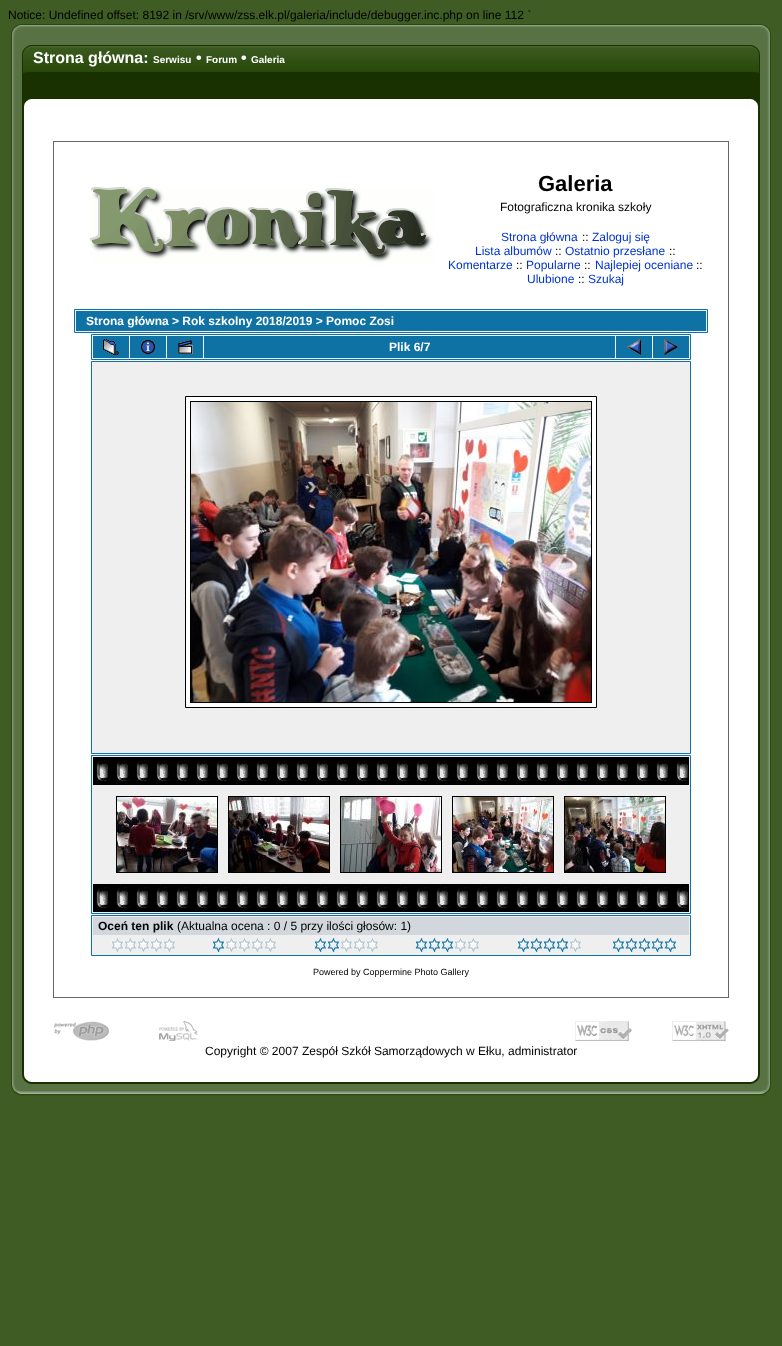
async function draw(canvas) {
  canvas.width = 782;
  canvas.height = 1346;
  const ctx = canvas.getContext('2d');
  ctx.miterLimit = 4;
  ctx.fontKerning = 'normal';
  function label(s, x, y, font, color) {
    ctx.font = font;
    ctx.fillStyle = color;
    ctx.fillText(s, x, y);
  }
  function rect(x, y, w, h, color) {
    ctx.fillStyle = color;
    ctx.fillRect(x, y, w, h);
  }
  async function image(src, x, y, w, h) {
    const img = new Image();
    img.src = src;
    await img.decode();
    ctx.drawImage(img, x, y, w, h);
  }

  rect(0, 0, 782, 1346, '#3e5c23');
  label('Notice: Undefined offset: 8192 in /srv/www/zss.elk.pl/galeria/include/debugger.inc.php on line 112 `', 8, 19, '12px Liberation Sans', '#000');
  await image('assets/img1.png', 11, 24, 22, 12);
  await image('assets/img2.png', 33, 24, 716, 12);
  await image('assets/img3.png', 749, 24, 22, 12);
  await image('assets/img4.png', 11, 36, 22, 1);
  rect(33, 36, 716, 1, '#587243');
  await image('assets/img5.png', 749, 36, 22, 1);
  await image('assets/img6.png', 11, 37, 22, 70);
  await image('assets/img7.png', 33, 37, 716, 30);
  label('Strona główna:', 33, 63, 'bold 16px Liberation Sans', '#fff');
  label('Serwisu', 153, 63, 'bold 10px Liberation Sans', '#fff');
  label('•', 196, 63, 'bold 16px Liberation Sans', '#fff');
  label('Forum', 206, 63, 'bold 10px Liberation Sans', '#fff');
  label('•', 241, 63, 'bold 16px Liberation Sans', '#fff');
  label('Galeria', 251, 63, 'bold 10px Liberation Sans', '#fff');
  await image('assets/img8.png', 749, 37, 22, 70);
  await image('assets/img9.png', 33, 67, 716, 10);
  await image('assets/img10.png', 33, 77, 716, 30);
  await image('assets/img11.png', 11, 107, 22, 937);
  rect(33, 107, 716, 965, '#fff');
  ctx.strokeStyle = '#666';
  ctx.strokeRect(53.5, 141.5, 675, 856);
  await image('assets/img12.png', 90, 187, 344, 76);
  label('Galeria', 538, 191, 'bold 22px Liberation Sans', '#000');
  label('Fotograficzna kronika szkoły', 500, 211, '12px Liberation Sans', '#000');
  label('Strona główna', 501, 241, '12px Liberation Sans', '#03c');
  label('::', 582, 241, '12px Liberation Sans', '#000');
  label('Zaloguj się', 592, 241, '12px Liberation Sans', '#03c');
  label('Lista albumów', 475, 255, '12px Liberation Sans', '#03c');
  label('::', 555, 255, '12px Liberation Sans', '#000');
  label('Ostatnio przesłane', 565, 255, '12px Liberation Sans', '#03c');
  label('::', 669, 255, '12px Liberation Sans', '#000');
  label('Komentarze', 448, 269, '12px Liberation Sans', '#03c');
  label('::', 516, 269, '12px Liberation Sans', '#000');
  label('Popularne', 526, 269, '12px Liberation Sans', '#03c');
  label('::', 584, 269, '12px Liberation Sans', '#000');
  label('Najlepiej oceniane', 595, 269, '12px Liberation Sans', '#03c');
  label('::', 696, 269, '12px Liberation Sans', '#000');
  label('Ulubione', 527, 283, '12px Liberation Sans', '#03c');
  label('::', 578, 283, '12px Liberation Sans', '#000');
  label('Szukaj', 588, 283, '12px Liberation Sans', '#03c');
  ctx.fillStyle = '#efefef';
  ctx.beginPath();
  ctx.rect(74.5, 309.5, 633, 23);
  ctx.fill();
  ctx.strokeStyle = '#0e72a4';
  ctx.stroke();
  rect(76, 311, 630, 20, '#0e72a4');
  label('Strona główna > Rok szkolny 2018/2019 > Pomoc Zosi', 86, 325, 'bold 12px Liberation Sans', '#fff');
  ctx.fillStyle = '#efefef';
  ctx.beginPath();
  ctx.rect(91.5, 334.5, 599, 25);
  ctx.fill();
  ctx.stroke();
  rect(93, 336, 36, 22, '#0e72a4');
  await image('assets/img13.png', 103, 339, 16, 16);
  rect(130, 336, 36, 22, '#0e72a4');
  await image('assets/img14.png', 141, 340, 14, 14);
  rect(167, 336, 36, 22, '#0e72a4');
  await image('assets/img15.png', 178, 340, 15, 14);
  rect(204, 336, 411, 22, '#0e72a4');
  label('Plik 6/7', 389, 351, 'bold 12px Liberation Sans', '#fff');
  rect(616, 336, 36, 22, '#0e72a4');
  await image('assets/img16.png', 627, 339, 14, 16);
  rect(653, 336, 36, 22, '#0e72a4');
  await image('assets/img17.png', 664, 339, 14, 16);
  ctx.fillStyle = '#efefef';
  ctx.beginPath();
  ctx.rect(91.5, 361.5, 599, 392);
  ctx.fill();
  ctx.stroke();
  ctx.fillStyle = '#fff';
  ctx.beginPath();
  ctx.rect(185.5, 396.5, 411, 311);
  ctx.fill();
  ctx.strokeStyle = '#000';
  ctx.stroke();
  ctx.strokeRect(190.5, 401.5, 401, 301);
  await image('assets/img18.png', 191, 402, 400, 300);
  ctx.fillStyle = '#efefef';
  ctx.beginPath();
  ctx.rect(91.5, 755.5, 599, 158);
  ctx.fill();
  ctx.strokeStyle = '#0e72a4';
  ctx.stroke();
  await image('assets/img19.png', 93, 757, 596, 28);
  ctx.strokeStyle = '#000';
  ctx.strokeRect(116.5, 796.5, 101, 76);
  await image('assets/img20.png', 117, 797, 100, 75);
  ctx.strokeRect(228.5, 796.5, 101, 76);
  await image('assets/img21.png', 229, 797, 100, 75);
  ctx.strokeRect(340.5, 796.5, 101, 76);
  await image('assets/img22.png', 341, 797, 100, 75);
  ctx.strokeRect(452.5, 796.5, 101, 76);
  await image('assets/img23.png', 453, 797, 100, 75);
  ctx.strokeRect(564.5, 796.5, 101, 76);
  await image('assets/img24.png', 565, 797, 100, 75);
  await image('assets/img19.png', 93, 884, 596, 28);
  ctx.beginPath();
  ctx.rect(91.5, 915.5, 599, 40);
  ctx.fill();
  ctx.strokeStyle = '#0e72a4';
  ctx.stroke();
  rect(93, 917, 596, 18, '#d1d7dc');
  label('Oceń ten plik', 98, 930, 'bold 12px Liberation Sans', '#000');
  label('(Aktualna ocena : 0 / 5 przy ilości głosów: 1)', 177, 930, '12px Liberation Sans', '#000');
  await image('assets/img25.png', 111, 938, 65, 14);
  await image('assets/img26.png', 212, 938, 65, 14);
  await image('assets/img27.png', 314, 938, 65, 14);
  await image('assets/img28.png', 415, 938, 65, 14);
  await image('assets/img29.png', 517, 938, 65, 14);
  await image('assets/img30.png', 612, 938, 65, 14);
  label('Powered by Coppermine Photo Gallery', 313, 975, '9px Liberation Sans', '#000');
  await image('assets/img31.png', 54, 1021, 55, 20);
  await image('assets/img32.png', 159, 1021, 41, 20);
  await image('assets/img33.png', 575, 1021, 57, 20);
  await image('assets/img34.png', 672, 1021, 57, 20);
  await image('assets/img35.png', 749, 107, 22, 937);
  await image('assets/img36.png', 11, 1044, 22, 28);
  label('Copyright © 2007 Zespół Szkół Samorządowych w Ełku, administrator', 205, 1055, '12px Liberation Sans', '#000');
  await image('assets/img37.png', 749, 1044, 22, 28);
  await image('assets/img38.png', 11, 1072, 22, 24);
  await image('assets/img39.png', 33, 1072, 716, 24);
  await image('assets/img40.png', 749, 1072, 22, 24);
}

draw(document.querySelector('canvas'));
